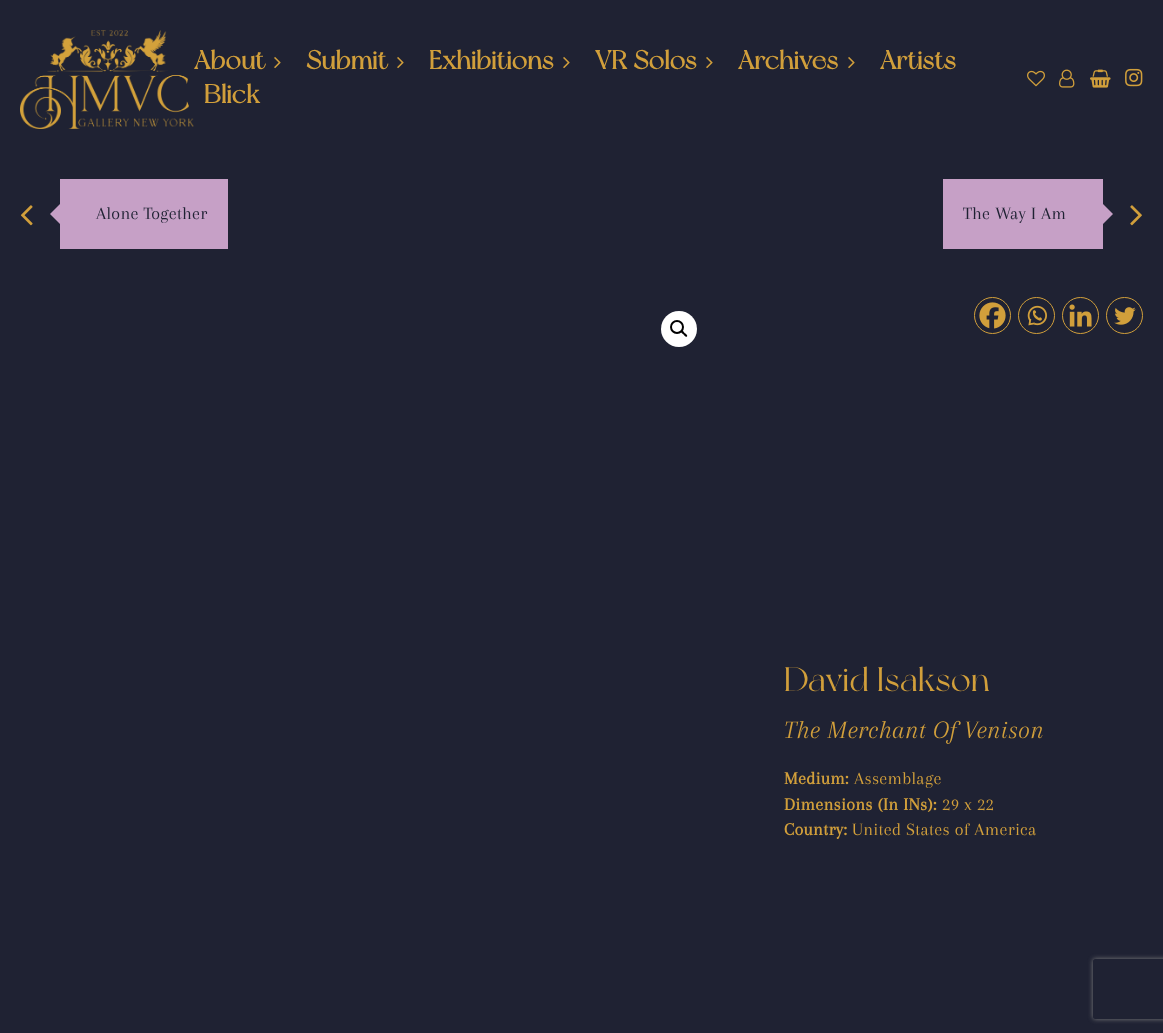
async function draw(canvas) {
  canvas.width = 1163;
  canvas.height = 1033;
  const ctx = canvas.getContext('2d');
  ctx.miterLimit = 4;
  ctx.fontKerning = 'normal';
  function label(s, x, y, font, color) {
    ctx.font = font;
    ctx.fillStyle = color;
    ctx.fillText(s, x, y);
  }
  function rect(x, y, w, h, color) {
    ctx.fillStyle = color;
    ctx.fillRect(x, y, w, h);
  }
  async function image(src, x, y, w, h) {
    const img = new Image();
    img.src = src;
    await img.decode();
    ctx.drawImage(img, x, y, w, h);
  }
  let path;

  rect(0, 0, 1163, 1033, '#1f2233');
  await image('assets/img1.png', 20, 30, 174, 99);
  ctx.letterSpacing = '0.3px';
  label('About', 194, 69, 'bold 26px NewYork', '#d19f3b');
  await image('assets/img2.png', 274, 57, 7, 12);
  label('Submit', 306, 69, 'bold 26px NewYork', '#d19f3b');
  await image('assets/img2.png', 397, 57, 7, 12);
  label('Exhibitions', 429, 69, 'bold 26px NewYork', '#d19f3b');
  await image('assets/img2.png', 563, 57, 7, 12);
  label('VR Solos', 595, 69, 'bold 26px NewYork', '#d19f3b');
  await image('assets/img2.png', 706, 57, 7, 12);
  label('Archives', 738, 69, 'bold 26px NewYork', '#d19f3b');
  await image('assets/img2.png', 848, 57, 7, 12);
  label('Artists', 880, 69, 'bold 26px NewYork', '#d19f3b');
  label('Blick', 204, 103, 'bold 26px NewYork', '#d19f3b');
  await image('assets/img3.png', 1027, 70, 18, 17);
  await image('assets/img4.png', 1059, 69, 16, 19);
  await image('assets/img5.png', 1090, 69, 21, 19);
  await image('assets/img6.png', 1125, 68, 18, 19);
  rect(60, 179, 168, 70, '#c6a0c6');
  await image('assets/img7.png', 20, 205, 13, 21);
  path = new Path2D('M60 204V224L50 214Z');
  ctx.fill(path);
  label('Alone Together', 96, 219, '18px Arapey', '#1f2233');
  rect(943, 179, 160, 70, '#c6a0c6');
  label('The Way I Am', 963, 219, '18px Arapey', '#1f2233');
  ctx.fillStyle = '#c6a0c6';
  path = new Path2D('M1103 224V204L1113 214Z');
  ctx.fill(path);
  await image('assets/img8.png', 1130, 205, 12, 21);
  ctx.fillStyle = '#fff';
  ctx.beginPath();
  ctx.arc(679, 329, 18, 0, 2 * Math.PI);
  ctx.fill();
  ctx.beginPath();
  ctx.arc(677, 327, 6, 0, 2 * Math.PI);
  ctx.strokeStyle = '#000';
  ctx.lineWidth = 2;
  ctx.stroke();
  ctx.fillStyle = '#000';
  path = new Path2D('M681 331C682.5 329.5 684 332.5 684.5 333C685.5 333.5 688 335.5 687 336.5C685.5 337.5 684 335 683.5 334.5C682.5 333.5 680 332 681 331Z');
  ctx.fill(path);
  ctx.beginPath();
  ctx.arc(992.5, 315.5, 18, 0, 2 * Math.PI);
  ctx.strokeStyle = '#d19f3b';
  ctx.lineWidth = 1;
  ctx.stroke();
  await image('assets/img9.png', 979, 302, 27, 27);
  ctx.beginPath();
  ctx.arc(1036.5, 315.5, 18, 0, 2 * Math.PI);
  ctx.stroke();
  await image('assets/img10.png', 1027, 305, 20, 21);
  ctx.beginPath();
  ctx.arc(1080.5, 315.5, 18, 0, 2 * Math.PI);
  ctx.stroke();
  await image('assets/img11.png', 1069, 304, 23, 23);
  ctx.beginPath();
  ctx.arc(1124.5, 315.5, 18, 0, 2 * Math.PI);
  ctx.stroke();
  await image('assets/img12.png', 1114, 307, 22, 18);
  label('David Isakson', 784, 691, '34px NewYork', '#d19f3b');
  label('The Merchant Of Venison', 784, 738, 'italic 26px Arapey', '#d19f3b');
  label('Medium:', 784, 784, 'bold 18px Arapey', '#d19f3b');
  label('Assemblage', 854, 784, '18px Arapey', '#d19f3b');
  label('Dimensions (In INs):', 784, 810, 'bold 18px Arapey', '#d19f3b');
  label('29 x 22', 942, 810, '18px Arapey', '#d19f3b');
  label('Country:', 784, 835, 'bold 18px Arapey', '#d19f3b');
  label('United States of America', 852, 835, '18px Arapey', '#d19f3b');
  ctx.save();
  path = new Path2D('M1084 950H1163V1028H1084ZM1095 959H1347C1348 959 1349 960 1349 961V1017C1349 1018 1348 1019 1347 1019H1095C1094 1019 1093 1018 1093 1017V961C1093 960 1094 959 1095 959Z');
  ctx.clip(path, 'evenodd');
  ctx.fillStyle = '#808080';
  ctx.filter = 'blur(2.5px)';
  ctx.beginPath();
  ctx.roundRect(1093, 959, 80, 60, 2);
  ctx.fill();
  ctx.filter = 'none';
  ctx.restore();
}

draw(document.querySelector('canvas'));
